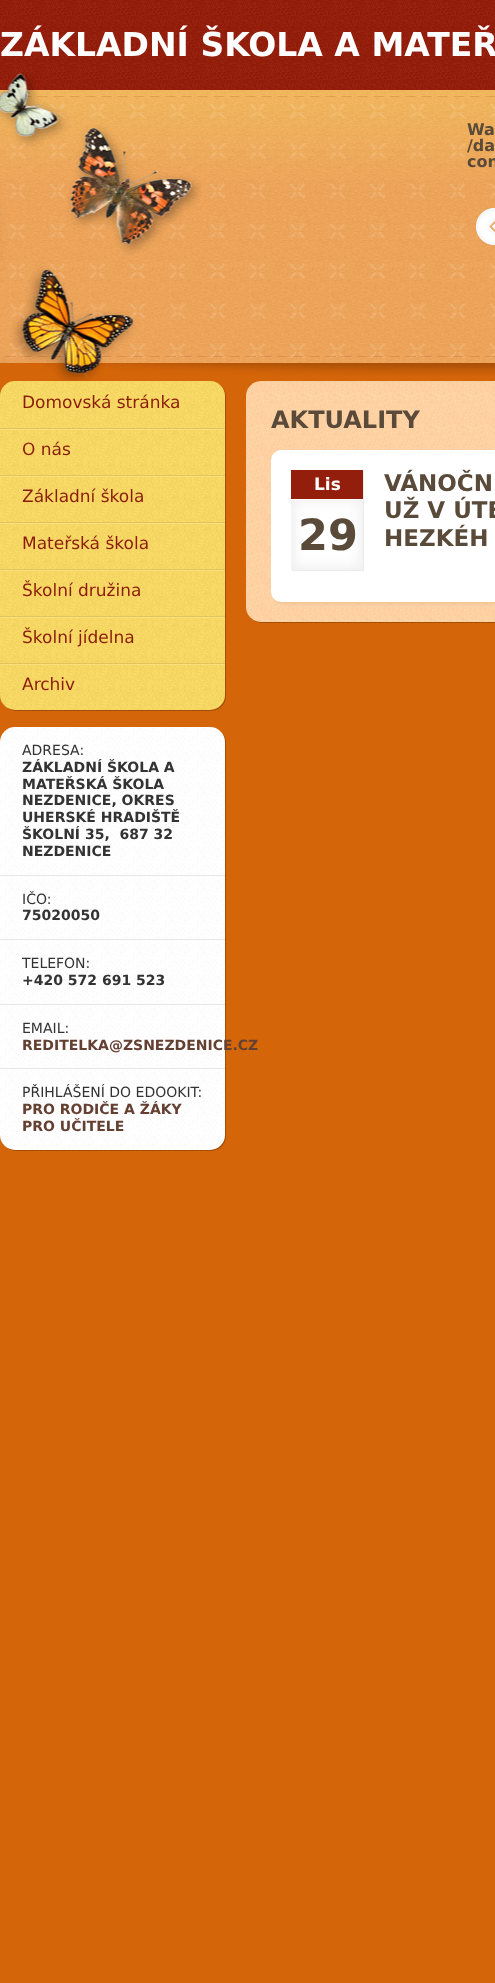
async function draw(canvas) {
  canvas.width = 495;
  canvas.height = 1983;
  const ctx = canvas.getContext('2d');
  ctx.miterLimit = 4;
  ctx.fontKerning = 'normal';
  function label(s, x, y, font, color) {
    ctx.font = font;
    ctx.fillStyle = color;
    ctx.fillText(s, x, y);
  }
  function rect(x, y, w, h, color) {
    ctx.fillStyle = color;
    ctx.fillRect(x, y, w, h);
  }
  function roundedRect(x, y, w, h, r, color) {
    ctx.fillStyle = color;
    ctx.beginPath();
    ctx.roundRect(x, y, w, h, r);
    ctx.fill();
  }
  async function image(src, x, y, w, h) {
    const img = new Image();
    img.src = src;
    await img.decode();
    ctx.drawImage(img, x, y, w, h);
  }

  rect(0, 0, 495, 1983, '#d56509');
  await image('assets/img1.png', 0, 0, 495, 90);
  label('ZÁKLADNÍ ŠKOLA A MATEŘ', 0, 56, 'bold 33px DejaVu Sans', '#fff');
  await image('assets/img2.png', 0, 90, 495, 273);
  await image('assets/img3.png', 0, 73, 201, 308);
  await image('assets/img4.png', 81, 363, 414, 13);
  label('Wa', 467, 135, 'bold 16px DejaVu Sans', '#5a4a39');
  label('/da', 467, 151, 'bold 16px DejaVu Sans', '#5a4a39');
  label('con', 467, 167, 'bold 16px DejaVu Sans', '#5a4a39');
  await image('assets/img5.png', 476, 208, 19, 37);
  ctx.fillStyle = '#a34e08';
  ctx.filter = 'blur(0.5px)';
  ctx.beginPath();
  ctx.roundRect(1, 382, 225, 329, 15);
  ctx.fill();
  ctx.filter = 'none';
  await image('assets/img6.png', 0, 381, 225, 329);
  label('Domovská stránka', 22, 408, '17px DejaVu Sans', '#8a1c0a');
  await image('assets/img7.png', 0, 428, 225, 2);
  label('O nás', 22, 455, '17px DejaVu Sans', '#8a1c0a');
  await image('assets/img7.png', 0, 475, 225, 2);
  label('Základní škola', 22, 502, '17px DejaVu Sans', '#8a1c0a');
  await image('assets/img7.png', 0, 522, 225, 2);
  label('Mateřská škola', 22, 549, '17px DejaVu Sans', '#8a1c0a');
  await image('assets/img7.png', 0, 569, 225, 2);
  label('Školní družina', 22, 596, '17px DejaVu Sans', '#8a1c0a');
  await image('assets/img7.png', 0, 616, 225, 2);
  label('Školní jídelna', 22, 643, '17px DejaVu Sans', '#8a1c0a');
  await image('assets/img7.png', 0, 663, 225, 2);
  label('Archiv', 22, 690, '17px DejaVu Sans', '#8a1c0a');
  ctx.fillStyle = '#a34e08';
  ctx.filter = 'blur(0.5px)';
  ctx.beginPath();
  ctx.roundRect(1, 728, 225, 423, 15);
  ctx.fill();
  ctx.filter = 'none';
  await image('assets/img8.png', 0, 727, 225, 423);
  label('ADRESA:', 22, 755, '14px DejaVu Sans', '#333');
  label('ZÁKLADNÍ ŠKOLA A', 22, 772, 'bold 14px DejaVu Sans', '#333');
  label('MATEŘSKÁ ŠKOLA', 22, 789, 'bold 14px DejaVu Sans', '#333');
  label('NEZDENICE, OKRES', 22, 805, 'bold 14px DejaVu Sans', '#333');
  label('UHERSKÉ HRADIŠTĚ', 22, 822, 'bold 14px DejaVu Sans', '#333');
  label('ŠKOLNÍ 35,  687 32', 22, 839, 'bold 14px DejaVu Sans', '#333');
  label('NEZDENICE', 22, 856, 'bold 14px DejaVu Sans', '#333');
  rect(0, 875, 225, 1, '#e7e7e7');
  label('IČO:', 22, 904, '14px DejaVu Sans', '#333');
  label('75020050', 22, 920, 'bold 14px DejaVu Sans', '#333');
  rect(0, 939, 225, 1, '#e7e7e7');
  label('TELEFON:', 22, 968, '14px DejaVu Sans', '#333');
  label('+420 572 691 523', 22, 985, 'bold 14px DejaVu Sans', '#333');
  rect(0, 1004, 225, 1, '#e7e7e7');
  label('EMAIL:', 22, 1033, '14px DejaVu Sans', '#333');
  label('REDITELKA@ZSNEZDENICE.CZ', 22, 1050, 'bold 14px DejaVu Sans', '#644033');
  rect(0, 1068, 225, 1, '#e7e7e7');
  label('PŘIHLÁŠENÍ DO EDOOKIT:', 22, 1097, '14px DejaVu Sans', '#333');
  label('PRO RODIČE A ŽÁKY', 22, 1114, 'bold 14px DejaVu Sans', '#644033');
  label('PRO UČITELE', 22, 1131, 'bold 14px DejaVu Sans', '#644033');
  ctx.fillStyle = '#a34e08';
  ctx.filter = 'blur(0.5px)';
  ctx.beginPath();
  ctx.roundRect(247, 382, 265, 241, 15);
  ctx.fill();
  ctx.filter = 'none';
  await image('assets/img9.png', 246, 381, 249, 241);
  label('AKTUALITY', 271, 428, 'bold 24px DejaVu Sans', '#5a4a39');
  ctx.fillStyle = '#f0c499';
  ctx.filter = 'blur(1px)';
  ctx.beginPath();
  ctx.roundRect(273, 452, 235, 152, 10);
  ctx.fill();
  ctx.filter = 'none';
  roundedRect(271, 450, 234, 152, 10, '#fff');
  await image('assets/img10.png', 291, 470, 73, 101);
  label('Lis', 314, 490, 'bold 17px DejaVu Sans', '#fff');
  label('29', 298, 550, 'bold 43px DejaVu Sans', '#5a4a39');
  label('VÁNOČN', 384, 491, 'bold 23px DejaVu Sans', '#5a4a39');
  label('UŽ V ÚTE', 384, 518, 'bold 23px DejaVu Sans', '#5a4a39');
  label('HEZKÉH', 384, 546, 'bold 23px DejaVu Sans', '#5a4a39');
}

draw(document.querySelector('canvas'));
